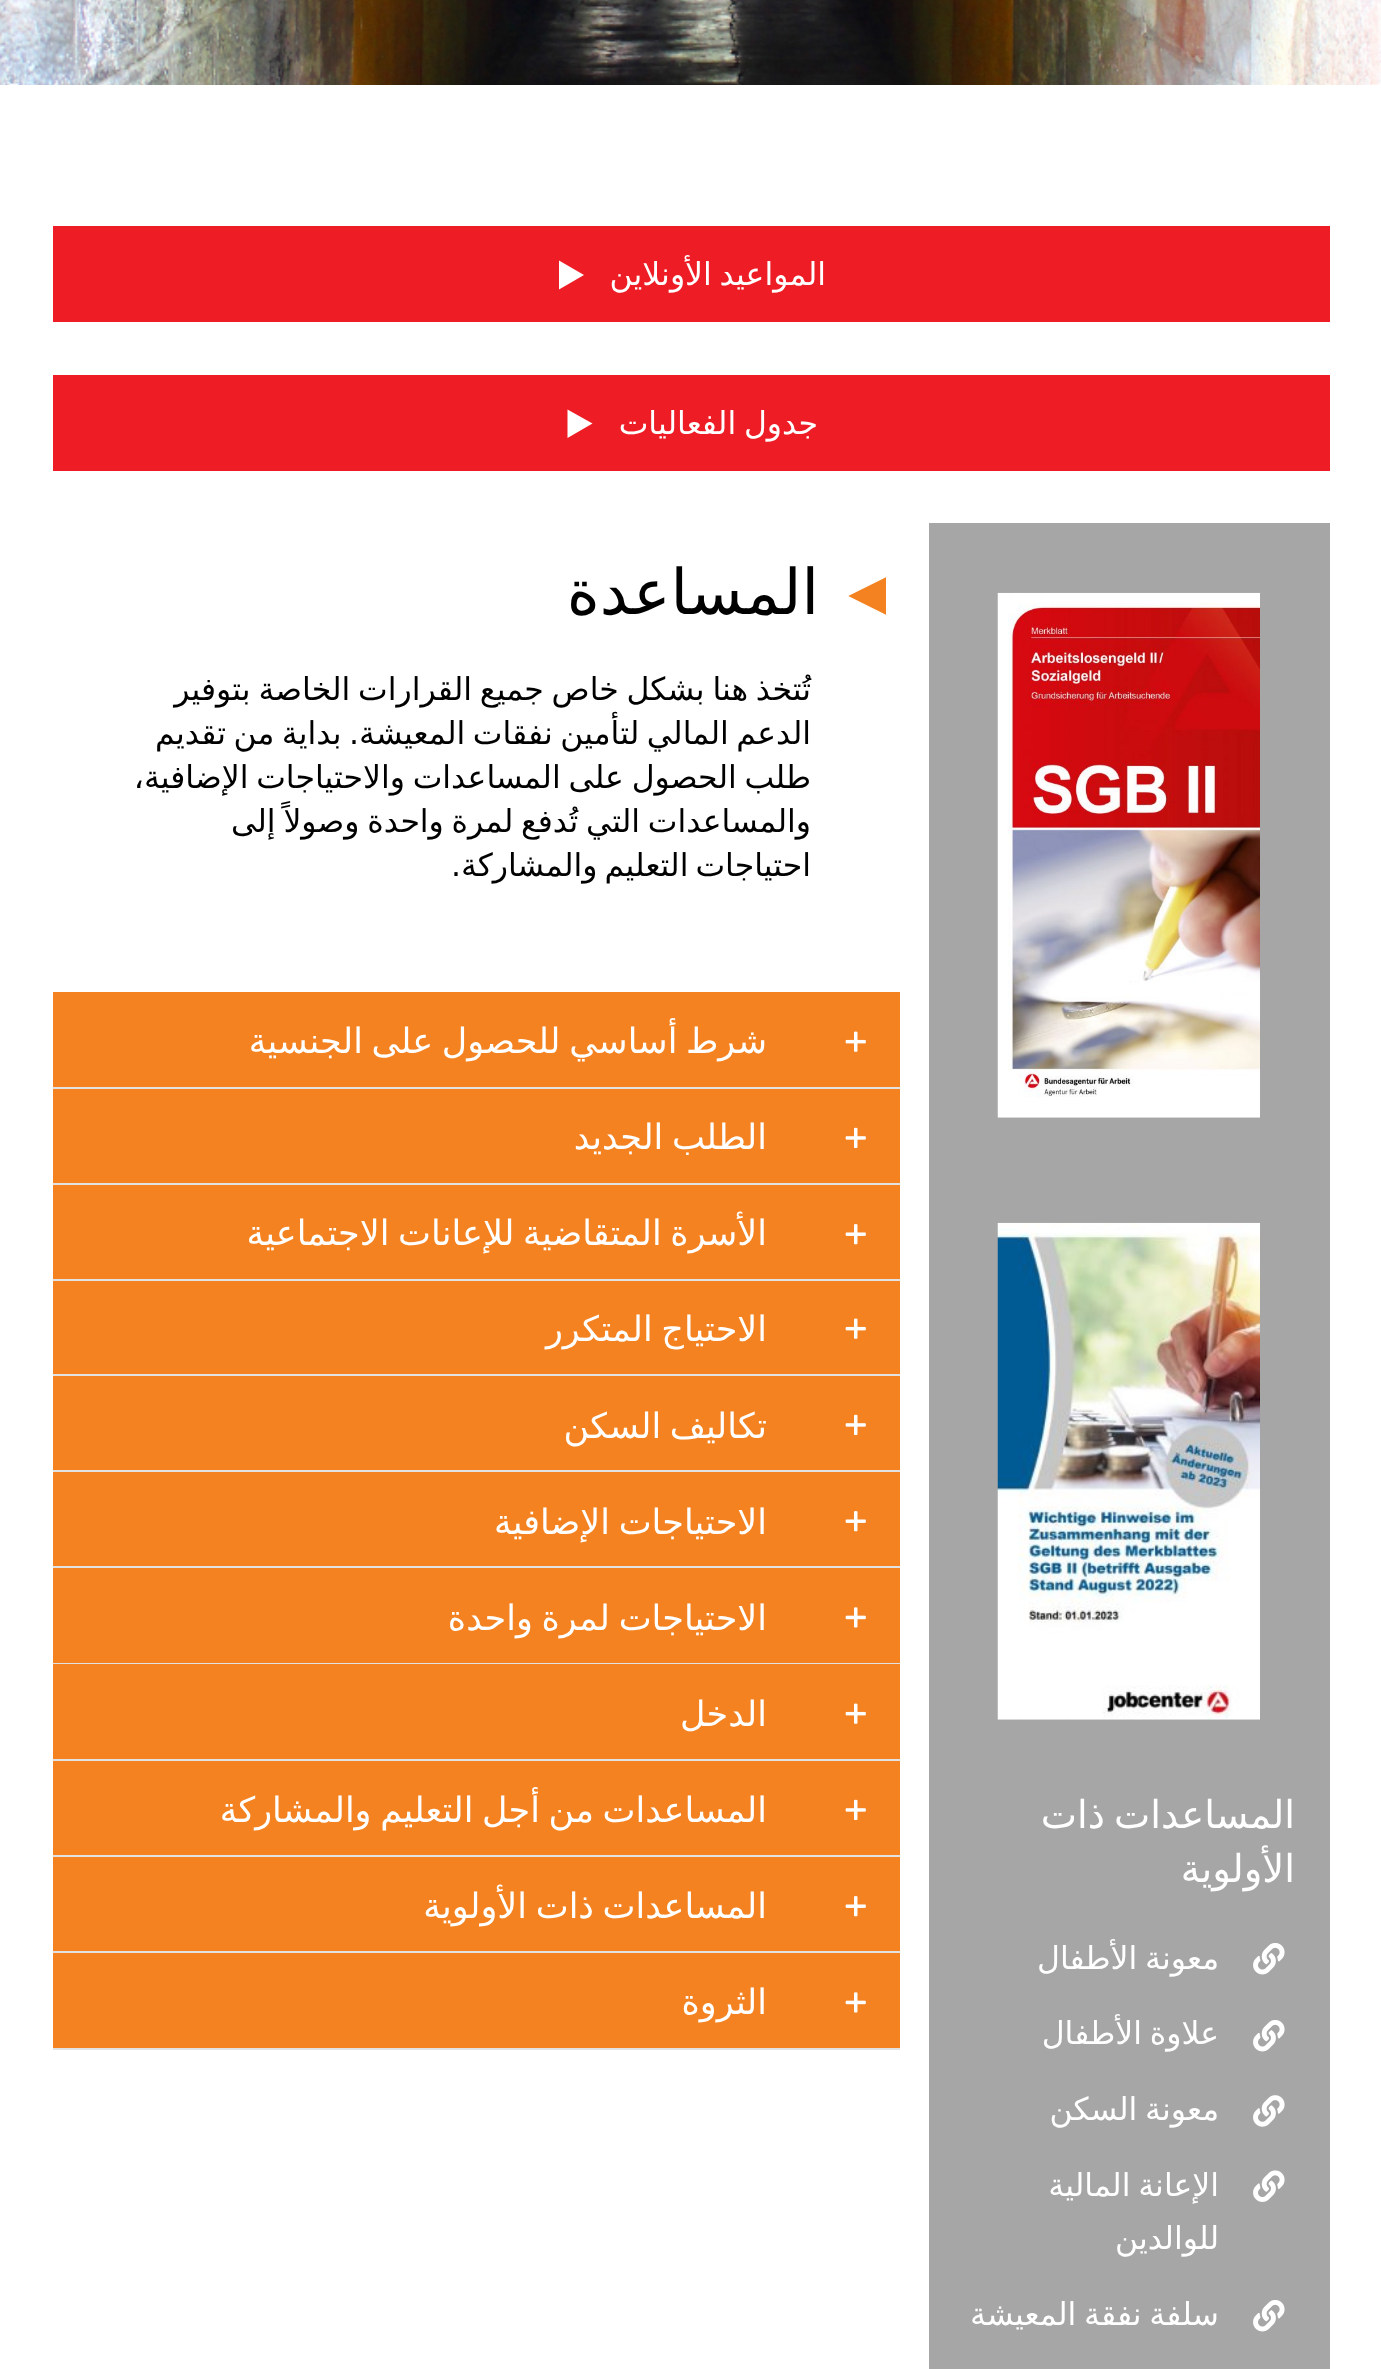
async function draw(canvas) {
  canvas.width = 1381;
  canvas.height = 2369;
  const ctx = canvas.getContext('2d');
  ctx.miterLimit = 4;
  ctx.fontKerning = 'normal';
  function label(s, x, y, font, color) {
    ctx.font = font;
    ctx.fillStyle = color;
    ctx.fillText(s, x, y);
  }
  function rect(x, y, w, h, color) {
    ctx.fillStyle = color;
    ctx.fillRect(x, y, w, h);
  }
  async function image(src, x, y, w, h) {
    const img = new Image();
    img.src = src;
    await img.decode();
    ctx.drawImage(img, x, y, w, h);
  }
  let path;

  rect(0, 0, 1381, 2369, '#fff');
  await image('assets/img1.png', 0, 0, 1381, 85);
  rect(53, 226, 1277, 96, '#ee1c25');
  ctx.wordSpacing = '-2.25px';
  ctx.direction = 'rtl';
  label('المواعيد الأونلاين', 826, 285, '31.5px DejaVu Sans', '#fff');
  path = new Path2D('M559 260.5V289.5L584 275Z');
  ctx.fill(path);
  rect(53, 375, 1277, 96, '#ee1c25');
  label('جدول الفعاليات', 818, 434, '31.5px DejaVu Sans', '#fff');
  path = new Path2D('M567.5 409.5V438L592.5 423.5Z');
  ctx.fill(path);
  rect(929, 523, 401, 1846, '#a6a6a6');
  await image('assets/img2.png', 997, 592, 263, 526);
  await image('assets/img3.png', 997, 1222, 263, 498);
  ctx.wordSpacing = '-3px';
  label('المساعدات ذات', 1295, 1828, '38.5px DejaVu Sans', '#fff');
  ctx.wordSpacing = '0px';
  label('الأولوية', 1295, 1882, '38.5px DejaVu Sans', '#fff');
  await image('assets/img4.png', 1253, 1943, 32, 32);
  ctx.wordSpacing = '-2.25px';
  label('معونة الأطفال', 1219, 1969, '31.5px DejaVu Sans', '#fff');
  await image('assets/img4.png', 1253, 2020, 32, 32);
  label('علاوة الأطفال', 1219, 2044, '31.5px DejaVu Sans', '#fff');
  await image('assets/img5.png', 1253, 2095, 32, 32);
  label('معونة السكن', 1219, 2120, '31.5px DejaVu Sans', '#fff');
  await image('assets/img6.png', 1253, 2170, 32, 32);
  label('الإعانة المالية', 1219, 2196, '31.5px DejaVu Sans', '#fff');
  ctx.wordSpacing = '0px';
  label('للوالدين', 1219, 2249, '31.5px DejaVu Sans', '#fff');
  await image('assets/img4.png', 1253, 2300, 32, 32);
  ctx.wordSpacing = '-2.25px';
  label('سلفة نفقة المعيشة', 1219, 2325, '31.5px DejaVu Sans', '#fff');
  ctx.wordSpacing = '0px';
  ctx.direction = 'ltr';
  label('◄', 836, 614, '63px Liberation Serif', '#f48221');
  ctx.direction = 'rtl';
  label('المساعدة', 819, 614, '63px DejaVu Sans', '#000');
  ctx.wordSpacing = '-2.25px';
  label('تُتخذ هنا بشكل خاص جميع القرارات الخاصة بتوفير', 811, 700, '31.5px DejaVu Sans', '#000');
  ctx.wordSpacing = '-2.5px';
  label('الدعم المالي لتأمين نفقات المعيشة. بداية من تقديم', 811, 744, '31.5px DejaVu Sans', '#000');
  ctx.wordSpacing = '-2.25px';
  label('طلب الحصول على المساعدات والاحتياجات الإضافية،', 811, 788, '31.5px DejaVu Sans', '#000');
  label('والمساعدات التي تُدفع لمرة واحدة وصولاً إلى', 811, 832, '31.5px DejaVu Sans', '#000');
  ctx.wordSpacing = '-3px';
  label('احتياجات التعليم والمشاركة.', 811, 876, '31.5px DejaVu Sans', '#000');
  rect(53, 1087, 847, 2, '#e2e2e2');
  rect(53, 992, 847, 95, '#f48221');
  await image('assets/img7.png', 845, 1031, 21, 21);
  ctx.wordSpacing = '-2.5px';
  label('شرط أساسي للحصول على الجنسية', 767, 1053, '35px DejaVu Sans', '#fff');
  rect(53, 1183, 847, 2, '#e2e2e2');
  rect(53, 1089, 847, 94, '#f48221');
  await image('assets/img8.png', 845, 1127, 21, 22);
  label('الطلب الجديد', 767, 1149, '35px DejaVu Sans', '#fff');
  rect(53, 1279, 847, 2, '#e2e2e2');
  rect(53, 1185, 847, 94, '#f48221');
  await image('assets/img9.png', 845, 1224, 21, 21);
  label('الأسرة المتقاضية للإعانات الاجتماعية', 767, 1245, '35px DejaVu Sans', '#fff');
  rect(53, 1374, 847, 2, '#e2e2e2');
  rect(53, 1281, 847, 93, '#f48221');
  await image('assets/img7.png', 845, 1318, 21, 21);
  label('الاحتياج المتكرر', 767, 1341, '35px DejaVu Sans', '#fff');
  rect(53, 1470, 847, 2, '#e2e2e2');
  rect(53, 1376, 847, 94, '#f48221');
  await image('assets/img8.png', 845, 1414, 21, 22);
  label('تكاليف السكن', 767, 1438, '35px DejaVu Sans', '#fff');
  rect(53, 1566, 847, 2, '#e2e2e2');
  rect(53, 1472, 847, 94, '#f48221');
  await image('assets/img9.png', 845, 1511, 21, 21);
  label('الاحتياجات الإضافية', 767, 1534, '35px DejaVu Sans', '#fff');
  rect(53, 1663, 847, 1, '#e2e2e2');
  rect(53, 1568, 847, 95, '#f48221');
  await image('assets/img10.png', 845, 1607, 21, 21);
  label('الاحتياجات لمرة واحدة', 767, 1630, '35px DejaVu Sans', '#fff');
  rect(53, 1759, 847, 2, '#e2e2e2');
  rect(53, 1664, 847, 95, '#f48221');
  await image('assets/img7.png', 845, 1703, 21, 21);
  ctx.wordSpacing = '0px';
  label('الدخل', 767, 1726, '35px DejaVu Sans', '#fff');
  rect(53, 1855, 847, 2, '#e2e2e2');
  rect(53, 1761, 847, 94, '#f48221');
  await image('assets/img8.png', 845, 1799, 21, 22);
  ctx.wordSpacing = '-2.5px';
  label('المساعدات من أجل التعليم والمشاركة', 767, 1822, '35px DejaVu Sans', '#fff');
  rect(53, 1951, 847, 2, '#e2e2e2');
  rect(53, 1857, 847, 94, '#f48221');
  await image('assets/img9.png', 845, 1896, 21, 21);
  label('المساعدات ذات الأولوية', 767, 1918, '35px DejaVu Sans', '#fff');
  rect(53, 2048, 847, 2, '#e2e2e2');
  rect(53, 1953, 847, 95, '#f48221');
  await image('assets/img10.png', 845, 1992, 21, 21);
  ctx.wordSpacing = '0px';
  label('الثروة', 767, 2014, '35px DejaVu Sans', '#fff');
}

draw(document.querySelector('canvas'));
